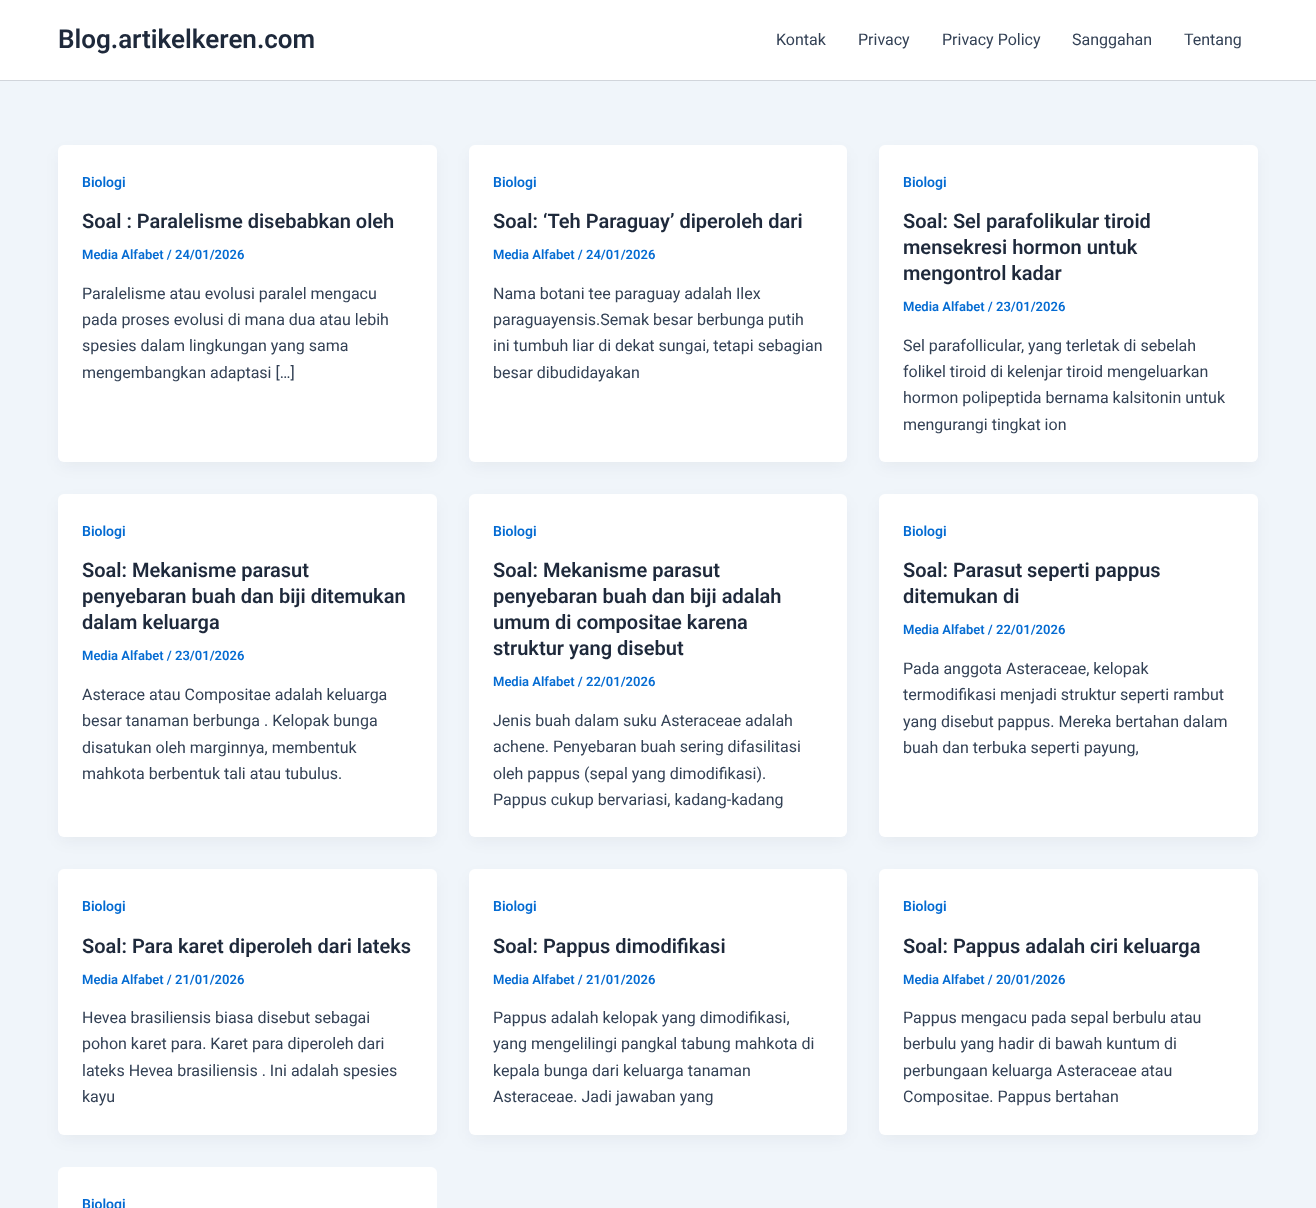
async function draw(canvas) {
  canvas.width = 1316;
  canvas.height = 1208;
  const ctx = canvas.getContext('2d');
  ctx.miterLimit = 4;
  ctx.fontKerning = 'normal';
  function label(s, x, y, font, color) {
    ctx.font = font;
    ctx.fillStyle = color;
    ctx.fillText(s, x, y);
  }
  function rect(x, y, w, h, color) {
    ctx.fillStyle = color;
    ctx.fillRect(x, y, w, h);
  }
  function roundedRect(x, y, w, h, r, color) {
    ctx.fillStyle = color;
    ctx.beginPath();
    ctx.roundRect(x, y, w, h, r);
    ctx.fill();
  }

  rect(0, 0, 1316, 1208, '#f0f5fa');
  rect(0, 0, 1316, 80, '#fff');
  rect(0, 80, 1316, 1, '#d1d5db');
  label('Blog.artikelkeren.com', 58, 48, '600 26px Roboto', '#1e293b');
  label('Kontak', 776, 45, '16px Roboto', '#334155');
  label('Privacy', 858, 45, '16px Roboto', '#334155');
  label('Privacy Policy', 942, 45, '16px Roboto', '#334155');
  label('Sanggahan', 1072, 45, '16px Roboto', '#334155');
  label('Tentang', 1184, 45, '16px Roboto', '#334155');
  ctx.fillStyle = '#1018280d';
  ctx.filter = 'blur(7.5px)';
  ctx.beginPath();
  ctx.roundRect(60, 153, 375, 313, 4);
  ctx.fill();
  ctx.filter = 'none';
  roundedRect(58, 145, 379, 317, 6, '#fff');
  label('Biologi', 82, 187, '600 14px Roboto', '#046bd2');
  label('Soal : Paralelisme disebabkan oleh', 82, 228, '600 20px Roboto', '#1e293b');
  label('Media Alfabet / 24/01/2026', 82, 259, '600 13px Roboto', '#046bd2');
  label('Paralelisme atau evolusi paralel mengacu', 82, 299, '16px Roboto', '#334155');
  label('pada proses evolusi di mana dua atau lebih', 82, 325, '16px Roboto', '#334155');
  label('spesies dalam lingkungan yang sama', 82, 351, '16px Roboto', '#334155');
  label('mengembangkan adaptasi […]', 82, 378, '16px Roboto', '#334155');
  ctx.fillStyle = '#1018280d';
  ctx.filter = 'blur(7.5px)';
  ctx.beginPath();
  ctx.roundRect(471, 153, 374, 313, 4);
  ctx.fill();
  ctx.filter = 'none';
  roundedRect(469, 145, 378, 317, 6, '#fff');
  label('Biologi', 493, 187, '600 14px Roboto', '#046bd2');
  label('Soal: ‘Teh Paraguay’ diperoleh dari', 493, 228, '600 20px Roboto', '#1e293b');
  label('Media Alfabet / 24/01/2026', 493, 259, '600 13px Roboto', '#046bd2');
  label('Nama botani tee paraguay adalah Ilex', 493, 299, '16px Roboto', '#334155');
  label('paraguayensis.Semak besar berbunga putih', 493, 325, '16px Roboto', '#334155');
  label('ini tumbuh liar di dekat sungai, tetapi sebagian', 493, 351, '16px Roboto', '#334155');
  label('besar dibudidayakan', 493, 378, '16px Roboto', '#334155');
  ctx.fillStyle = '#1018280d';
  ctx.filter = 'blur(7.5px)';
  ctx.beginPath();
  ctx.roundRect(881, 153, 375, 313, 4);
  ctx.fill();
  ctx.filter = 'none';
  roundedRect(879, 145, 379, 317, 6, '#fff');
  label('Biologi', 903, 187, '600 14px Roboto', '#046bd2');
  label('Soal: Sel parafolikular tiroid', 903, 228, '600 20px Roboto', '#1e293b');
  label('mensekresi hormon untuk', 903, 254, '600 20px Roboto', '#1e293b');
  label('mengontrol kadar', 903, 280, '600 20px Roboto', '#1e293b');
  label('Media Alfabet / 23/01/2026', 903, 311, '600 13px Roboto', '#046bd2');
  label('Sel parafollicular, yang terletak di sebelah', 903, 351, '16px Roboto', '#334155');
  label('folikel tiroid di kelenjar tiroid mengeluarkan', 903, 377, '16px Roboto', '#334155');
  label('hormon polipeptida bernama kalsitonin untuk', 903, 403, '16px Roboto', '#334155');
  label('mengurangi tingkat ion', 903, 430, '16px Roboto', '#334155');
  ctx.fillStyle = '#1018280d';
  ctx.filter = 'blur(7.5px)';
  ctx.beginPath();
  ctx.roundRect(60, 502, 375, 339, 4);
  ctx.fill();
  ctx.filter = 'none';
  roundedRect(58, 494, 379, 343, 6, '#fff');
  label('Biologi', 82, 536, '600 14px Roboto', '#046bd2');
  label('Soal: Mekanisme parasut', 82, 577, '600 20px Roboto', '#1e293b');
  label('penyebaran buah dan biji ditemukan', 82, 603, '600 20px Roboto', '#1e293b');
  label('dalam keluarga', 82, 629, '600 20px Roboto', '#1e293b');
  label('Media Alfabet / 23/01/2026', 82, 660, '600 13px Roboto', '#046bd2');
  label('Asterace atau Compositae adalah keluarga', 82, 700, '16px Roboto', '#334155');
  label('besar tanaman berbunga . Kelopak bunga', 82, 726, '16px Roboto', '#334155');
  label('disatukan oleh marginnya, membentuk', 82, 753, '16px Roboto', '#334155');
  label('mahkota berbentuk tali atau tubulus.', 82, 779, '16px Roboto', '#334155');
  ctx.fillStyle = '#1018280d';
  ctx.filter = 'blur(7.5px)';
  ctx.beginPath();
  ctx.roundRect(471, 502, 374, 339, 4);
  ctx.fill();
  ctx.filter = 'none';
  roundedRect(469, 494, 378, 343, 6, '#fff');
  label('Biologi', 493, 536, '600 14px Roboto', '#046bd2');
  label('Soal: Mekanisme parasut', 493, 577, '600 20px Roboto', '#1e293b');
  label('penyebaran buah dan biji adalah', 493, 603, '600 20px Roboto', '#1e293b');
  label('umum di compositae karena', 493, 629, '600 20px Roboto', '#1e293b');
  label('struktur yang disebut', 493, 655, '600 20px Roboto', '#1e293b');
  label('Media Alfabet / 22/01/2026', 493, 686, '600 13px Roboto', '#046bd2');
  label('Jenis buah dalam suku Asteraceae adalah', 493, 726, '16px Roboto', '#334155');
  label('achene. Penyebaran buah sering difasilitasi', 493, 752, '16px Roboto', '#334155');
  label('oleh pappus (sepal yang dimodifikasi).', 493, 779, '16px Roboto', '#334155');
  label('Pappus cukup bervariasi, kadang-kadang', 493, 805, '16px Roboto', '#334155');
  ctx.fillStyle = '#1018280d';
  ctx.filter = 'blur(7.5px)';
  ctx.beginPath();
  ctx.roundRect(881, 502, 375, 339, 4);
  ctx.fill();
  ctx.filter = 'none';
  roundedRect(879, 494, 379, 343, 6, '#fff');
  label('Biologi', 903, 536, '600 14px Roboto', '#046bd2');
  label('Soal: Parasut seperti pappus', 903, 577, '600 20px Roboto', '#1e293b');
  label('ditemukan di', 903, 603, '600 20px Roboto', '#1e293b');
  label('Media Alfabet / 22/01/2026', 903, 634, '600 13px Roboto', '#046bd2');
  label('Pada anggota Asteraceae, kelopak', 903, 674, '16px Roboto', '#334155');
  label('termodifikasi menjadi struktur seperti rambut', 903, 700, '16px Roboto', '#334155');
  label('yang disebut pappus. Mereka bertahan dalam', 903, 727, '16px Roboto', '#334155');
  label('buah dan terbuka seperti payung,', 903, 753, '16px Roboto', '#334155');
  ctx.fillStyle = '#1018280d';
  ctx.filter = 'blur(7.5px)';
  ctx.beginPath();
  ctx.roundRect(60, 877, 375, 262, 4);
  ctx.fill();
  ctx.filter = 'none';
  roundedRect(58, 869, 379, 266, 6, '#fff');
  label('Biologi', 82, 911, '600 14px Roboto', '#046bd2');
  label('Soal: Para karet diperoleh dari lateks', 82, 953, '600 20px Roboto', '#1e293b');
  label('Media Alfabet / 21/01/2026', 82, 984, '600 13px Roboto', '#046bd2');
  label('Hevea brasiliensis biasa disebut sebagai', 82, 1023, '16px Roboto', '#334155');
  label('pohon karet para. Karet para diperoleh dari', 82, 1049, '16px Roboto', '#334155');
  label('lateks Hevea brasiliensis . Ini adalah spesies', 82, 1076, '16px Roboto', '#334155');
  label('kayu', 82, 1102, '16px Roboto', '#334155');
  ctx.fillStyle = '#1018280d';
  ctx.filter = 'blur(7.5px)';
  ctx.beginPath();
  ctx.roundRect(471, 877, 374, 262, 4);
  ctx.fill();
  ctx.filter = 'none';
  roundedRect(469, 869, 378, 266, 6, '#fff');
  label('Biologi', 493, 911, '600 14px Roboto', '#046bd2');
  label('Soal: Pappus dimodifikasi', 493, 953, '600 20px Roboto', '#1e293b');
  label('Media Alfabet / 21/01/2026', 493, 984, '600 13px Roboto', '#046bd2');
  label('Pappus adalah kelopak yang dimodifikasi,', 493, 1023, '16px Roboto', '#334155');
  label('yang mengelilingi pangkal tabung mahkota di', 493, 1049, '16px Roboto', '#334155');
  label('kepala bunga dari keluarga tanaman', 493, 1076, '16px Roboto', '#334155');
  label('Asteraceae. Jadi jawaban yang', 493, 1102, '16px Roboto', '#334155');
  ctx.fillStyle = '#1018280d';
  ctx.filter = 'blur(7.5px)';
  ctx.beginPath();
  ctx.roundRect(881, 877, 375, 262, 4);
  ctx.fill();
  ctx.filter = 'none';
  roundedRect(879, 869, 379, 266, 6, '#fff');
  label('Biologi', 903, 911, '600 14px Roboto', '#046bd2');
  label('Soal: Pappus adalah ciri keluarga', 903, 953, '600 20px Roboto', '#1e293b');
  label('Media Alfabet / 20/01/2026', 903, 984, '600 13px Roboto', '#046bd2');
  label('Pappus mengacu pada sepal berbulu atau', 903, 1023, '16px Roboto', '#334155');
  label('berbulu yang hadir di bawah kuntum di', 903, 1049, '16px Roboto', '#334155');
  label('perbungaan keluarga Asteraceae atau', 903, 1076, '16px Roboto', '#334155');
  label('Compositae. Pappus bertahan', 903, 1102, '16px Roboto', '#334155');
  roundedRect(58, 1167, 379, 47, 6, '#fff');
  label('Biologi', 82, 1209, '600 14px Roboto', '#046bd2');
}

draw(document.querySelector('canvas'));
